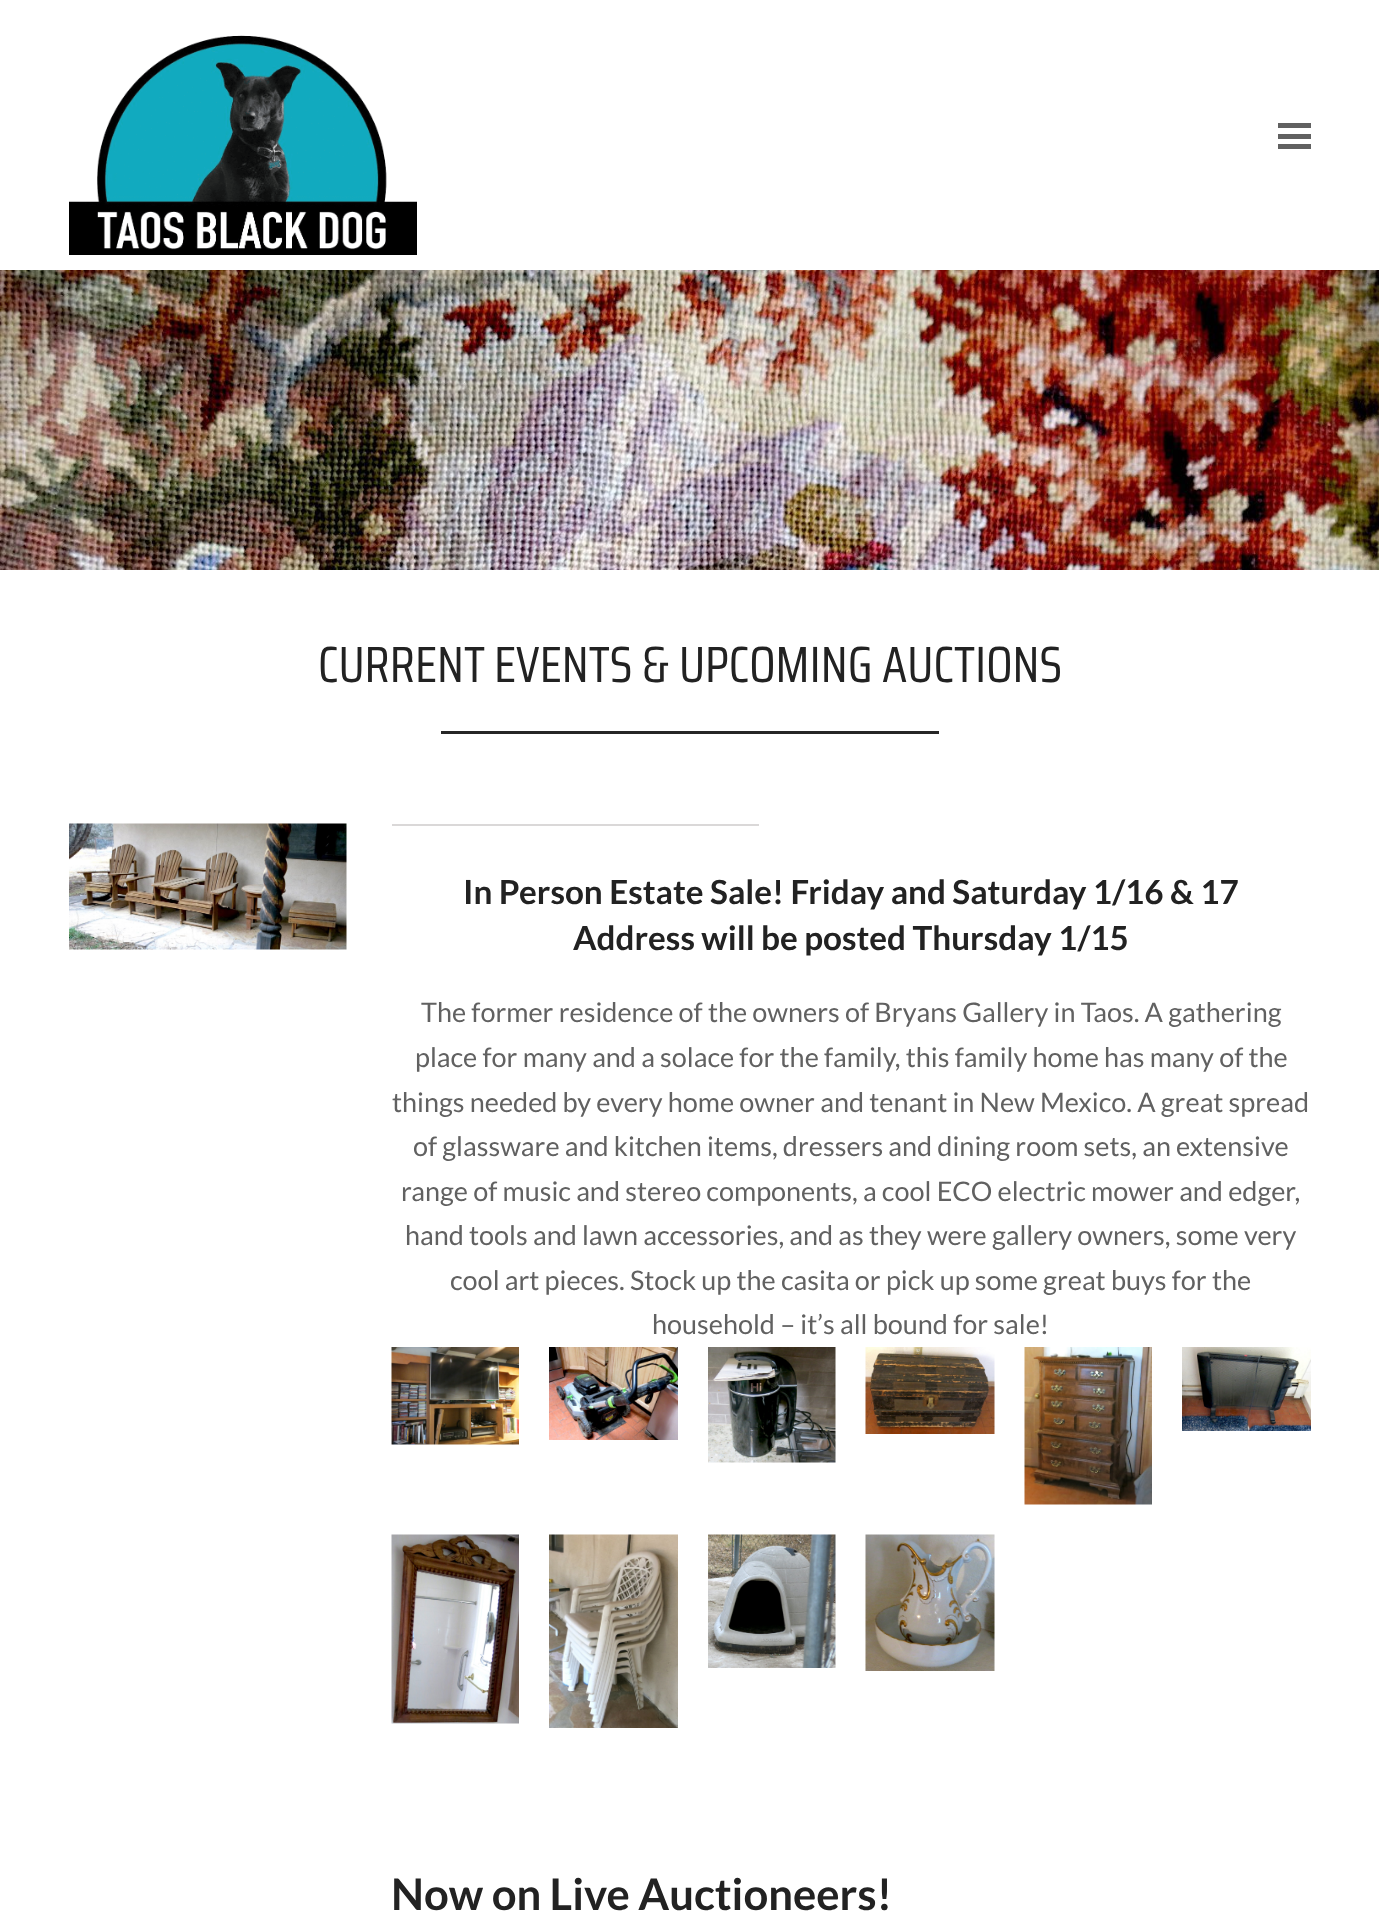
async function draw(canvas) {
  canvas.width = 1379;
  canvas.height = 1927;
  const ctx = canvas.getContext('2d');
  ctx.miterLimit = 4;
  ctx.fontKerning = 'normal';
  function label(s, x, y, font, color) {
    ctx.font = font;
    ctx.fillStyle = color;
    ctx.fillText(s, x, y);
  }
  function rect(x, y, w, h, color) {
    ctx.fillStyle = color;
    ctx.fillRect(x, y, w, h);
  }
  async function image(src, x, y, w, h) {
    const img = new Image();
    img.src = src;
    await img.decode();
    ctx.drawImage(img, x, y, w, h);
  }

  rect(0, 0, 1379, 1927, '#fff');
  await image('assets/img1.png', 69, 35, 348, 220);
  rect(1278, 134, 33, 5, '#616161');
  rect(1278, 123, 33, 5, '#616161');
  rect(1278, 144, 33, 5, '#616161');
  await image('assets/img2.png', 0, 270, 1379, 300);
  label('CURRENT EVENTS & UPCOMING AUCTIONS', 318, 682, '51px Saira Condensed', '#222');
  rect(441, 731, 498, 3, '#262626');
  await image('assets/img3.png', 69, 823, 278, 127);
  rect(392, 824, 367, 2, '#dad8d8');
  label('In Person Estate Sale! Friday and Saturday 1/16 & 17', 463, 904, 'bold 33.25px Lato', '#222');
  label('Address will be posted Thursday 1/15', 573, 950, 'bold 33.25px Lato', '#222');
  label('The former residence of the owners of Bryans Gallery in Taos. A gathering', 421, 1022, '27px Lato', '#616161');
  label('place for many and a solace for the family, this family home has many of the', 415, 1067, '27px Lato', '#616161');
  label('things needed by every home owner and tenant in New Mexico. A great spread', 392, 1112, '27px Lato', '#616161');
  label('of glassware and kitchen items, dressers and dining room sets, an extensive', 413, 1156, '27px Lato', '#616161');
  label('range of music and stereo components, a cool ECO electric mower and edger,', 401, 1201, '27px Lato', '#616161');
  label('hand tools and lawn accessories, and as they were gallery owners, some very', 405, 1245, '27px Lato', '#616161');
  label('cool art pieces. Stock up the casita or pick up some great buys for the', 450, 1290, '27px Lato', '#616161');
  label('household – it’s all bound for sale!', 652, 1334, '27px Lato', '#616161');
  await image('assets/img4.png', 391, 1347, 128, 98);
  await image('assets/img5.png', 549, 1347, 129, 93);
  await image('assets/img6.png', 708, 1347, 128, 116);
  await image('assets/img7.png', 865, 1347, 130, 87);
  await image('assets/img8.png', 1024, 1347, 128, 158);
  await image('assets/img9.png', 1182, 1347, 129, 84);
  await image('assets/img10.png', 391, 1534, 128, 190);
  await image('assets/img11.png', 549, 1534, 129, 194);
  await image('assets/img12.png', 708, 1534, 128, 134);
  await image('assets/img13.png', 865, 1534, 130, 137);
  label('Now on Live Auctioneers!', 391, 1910, 'bold 43.6px Lato', '#222');
}

draw(document.querySelector('canvas'));
